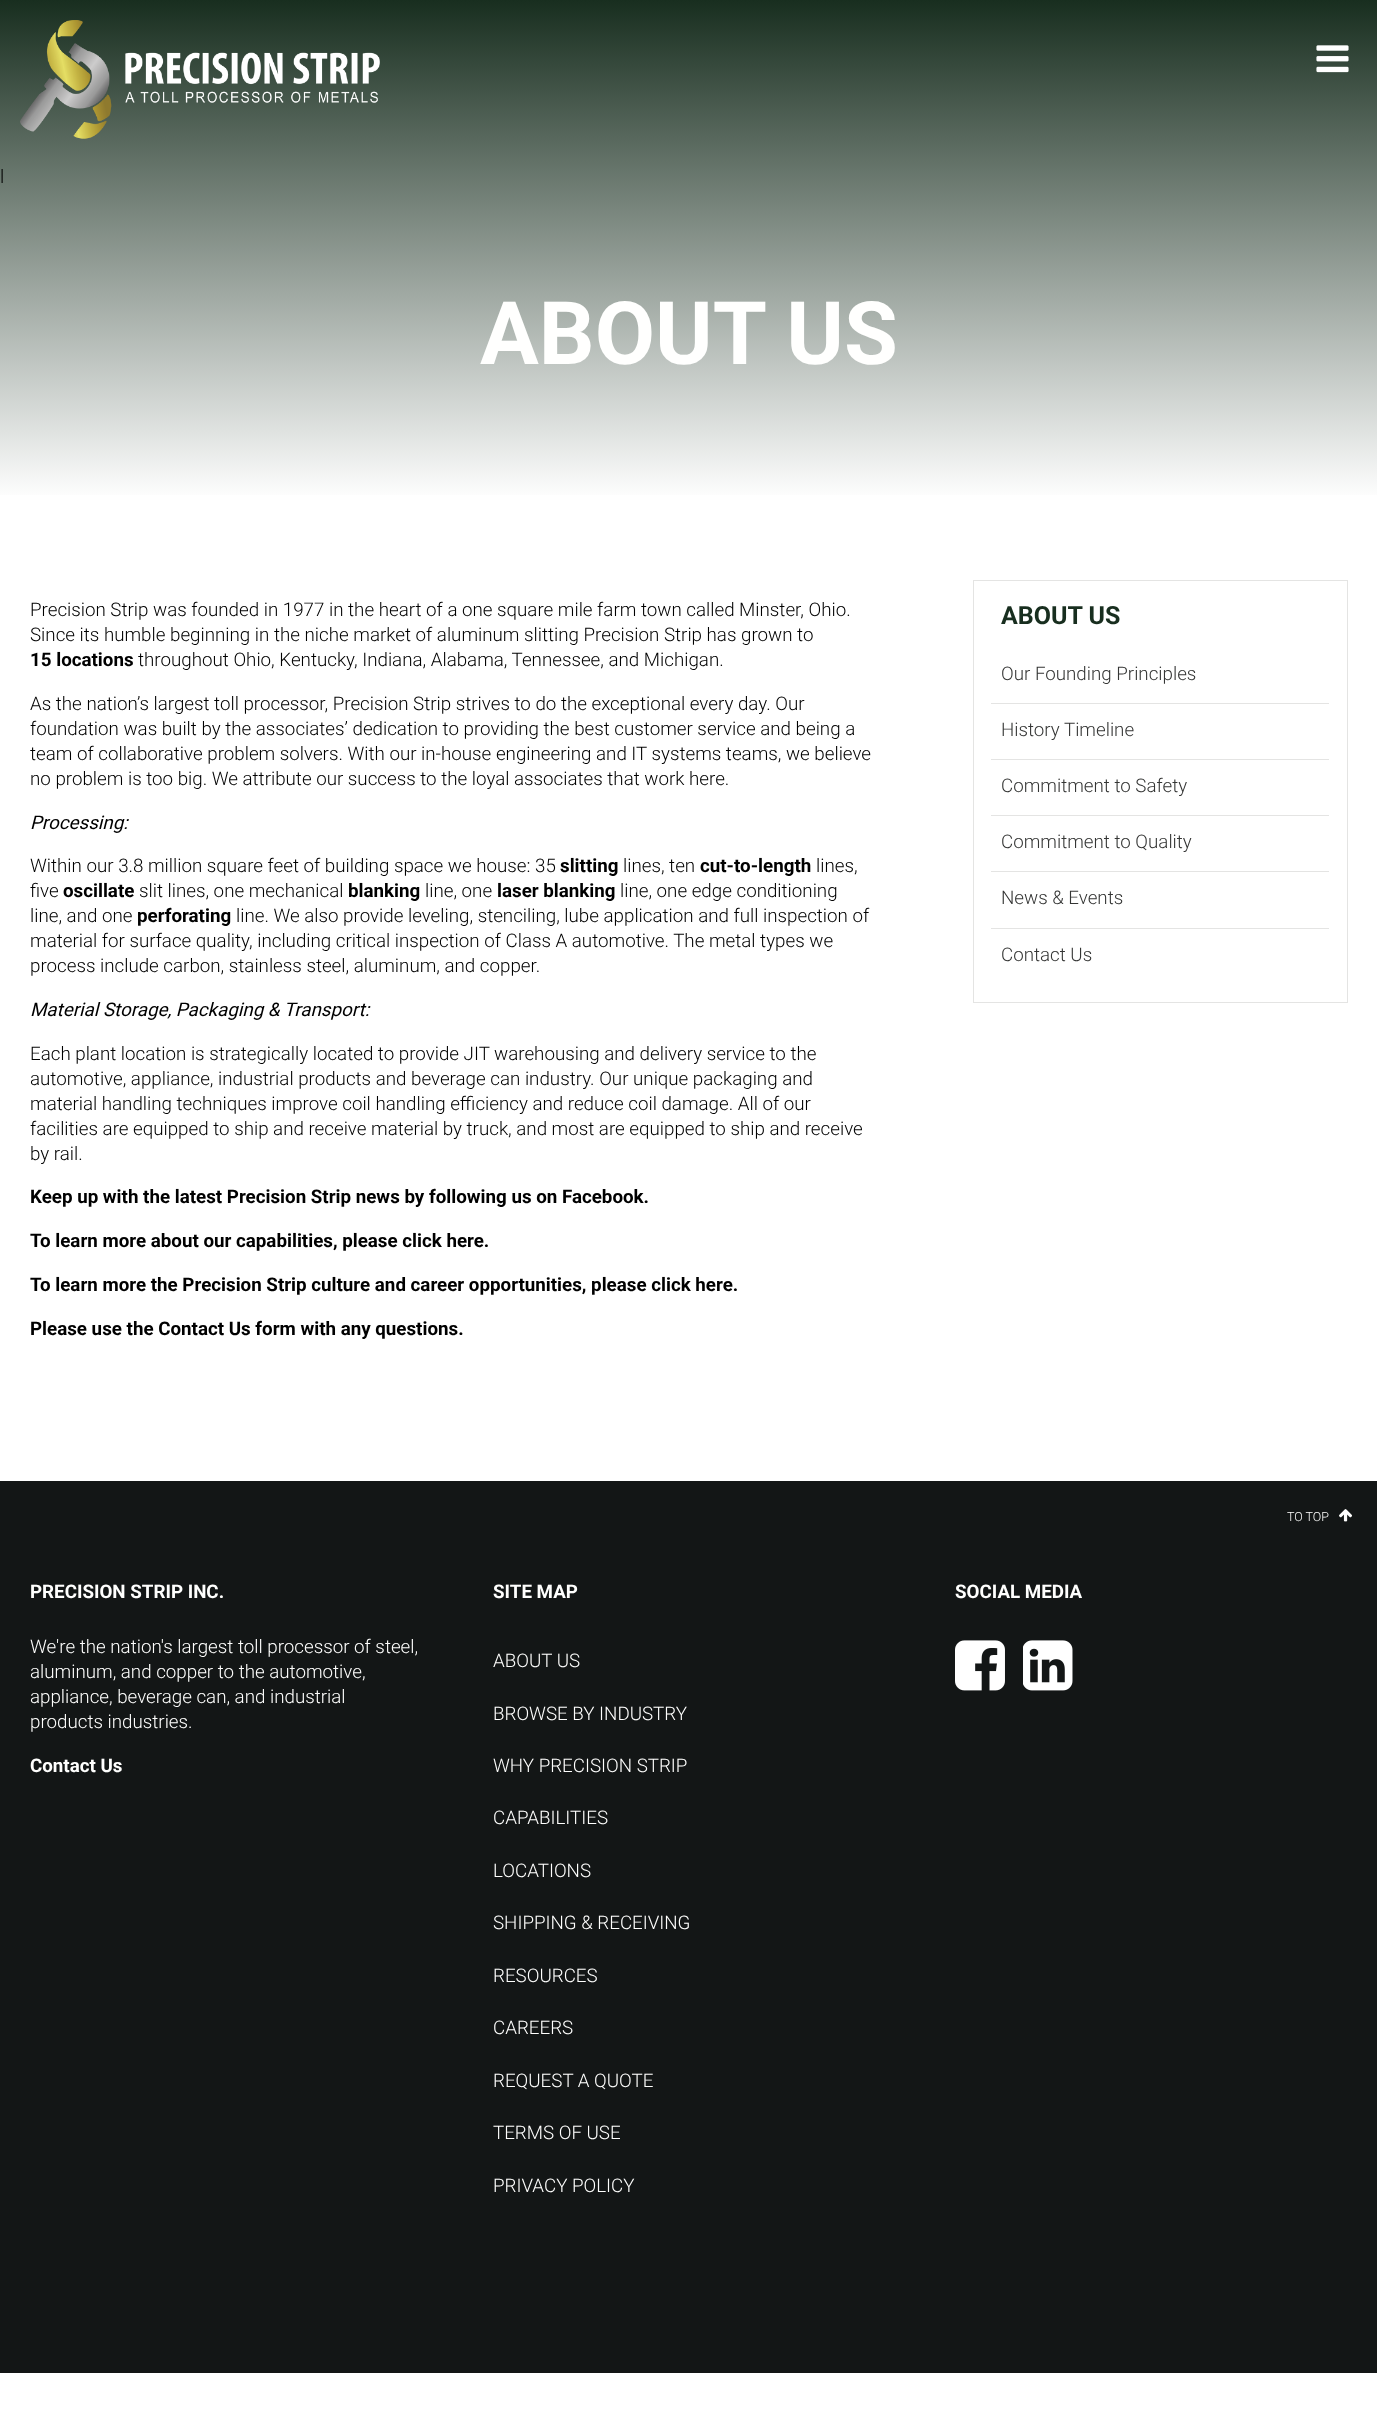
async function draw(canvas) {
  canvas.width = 1377;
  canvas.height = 2434;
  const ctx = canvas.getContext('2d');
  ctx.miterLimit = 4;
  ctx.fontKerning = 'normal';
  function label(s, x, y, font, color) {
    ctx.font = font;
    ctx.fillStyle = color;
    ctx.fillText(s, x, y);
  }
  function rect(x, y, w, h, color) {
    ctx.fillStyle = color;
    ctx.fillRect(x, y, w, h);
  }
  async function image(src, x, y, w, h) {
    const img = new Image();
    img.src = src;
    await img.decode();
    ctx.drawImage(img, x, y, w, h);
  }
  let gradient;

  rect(0, 0, 1377, 2434, '#fff');
  gradient = ctx.createLinearGradient(689, 0, 689, 500);
  gradient.addColorStop(0, '#182e1f');
  gradient.addColorStop(1, '#fff');
  ctx.fillStyle = gradient;
  ctx.fillRect(0, 0, 1377, 495);
  await image('assets/img1.png', 20, 20, 360, 119);
  await image('assets/img2.png', 1316, 45, 33, 28);
  label('l', 0, 183, '300 18.75px Roboto', '#000');
  label('ABOUT US', 480, 364, 'bold 87.5px Roboto', '#fffffe');
  label('Precision Strip was founded in 1977 in the heart of a one square mile farm town called Minster, Ohio.', 30, 616, '300 18.75px Roboto', '#000');
  label('Since its humble beginning in the niche market of aluminum slitting Precision Strip has grown to', 30, 641, '300 18.75px Roboto', '#000');
  label('15 locations', 30, 666, 'bold 18.75px Roboto', '#000');
  label('throughout Ohio, Kentucky, Indiana, Alabama, Tennessee, and Michigan.', 138, 666, '300 18.75px Roboto', '#000');
  label('As the nation’s largest toll processor, Precision Strip strives to do the exceptional every day. Our', 30, 710, '300 18.75px Roboto', '#000');
  label('foundation was built by the associates’ dedication to providing the best customer service and being a', 30, 735, '300 18.75px Roboto', '#000');
  label('team of collaborative problem solvers. With our in-house engineering and IT systems teams, we believe', 30, 760, '300 18.75px Roboto', '#000');
  label('no problem is too big. We attribute our success to the loyal associates that work here.', 30, 785, '300 18.75px Roboto', '#000');
  label('Processing:', 30, 829, 'italic 18.75px Roboto', '#000');
  label('Within our 3.8 million square feet of building space we house: 35', 30, 872, '300 18.75px Roboto', '#000');
  label('slitting', 560, 872, 'bold 18.75px Roboto', '#000');
  label('lines, ten', 623, 872, '300 18.75px Roboto', '#000');
  label('cut-to-length', 700, 872, 'bold 18.75px Roboto', '#000');
  label('lines,', 816, 872, '300 18.75px Roboto', '#000');
  label('five', 30, 897, '300 18.75px Roboto', '#000');
  label('oscillate', 63, 897, 'bold 18.75px Roboto', '#000');
  label('slit lines, one mechanical', 139, 897, '300 18.75px Roboto', '#000');
  label('blanking', 348, 897, 'bold 18.75px Roboto', '#000');
  label('line, one', 425, 897, '300 18.75px Roboto', '#000');
  label('laser blanking', 497, 897, 'bold 18.75px Roboto', '#000');
  label('line, one edge conditioning', 620, 897, '300 18.75px Roboto', '#000');
  label('line, and one', 30, 922, '300 18.75px Roboto', '#000');
  label('perforating', 137, 922, 'bold 18.75px Roboto', '#000');
  label('line. We also provide leveling, stenciling, lube application and full inspection of', 236, 922, '300 18.75px Roboto', '#000');
  label('material for surface quality, including critical inspection of Class A automotive. The metal types we', 30, 947, '300 18.75px Roboto', '#000');
  label('process include carbon, stainless steel, aluminum, and copper.', 30, 972, '300 18.75px Roboto', '#000');
  label('Material Storage, Packaging & Transport:', 30, 1016, 'italic 18.75px Roboto', '#000');
  label('Each plant location is strategically located to provide JIT warehousing and delivery service to the', 30, 1060, '300 18.75px Roboto', '#000');
  label('automotive, appliance, industrial products and beverage can industry. Our unique packaging and', 30, 1085, '300 18.75px Roboto', '#000');
  label('material handling techniques improve coil handling efficiency and reduce coil damage. All of our', 30, 1110, '300 18.75px Roboto', '#000');
  label('facilities are equipped to ship and receive material by truck, and most are equipped to ship and receive', 30, 1135, '300 18.75px Roboto', '#000');
  label('by rail.', 30, 1160, '300 18.75px Roboto', '#000');
  label('Keep up with the latest Precision Strip news by following us on Facebook.', 30, 1203, 'bold 18.75px Roboto', '#000');
  label('To learn more about our capabilities, please click here.', 30, 1247, 'bold 18.75px Roboto', '#000');
  label('To learn more the Precision Strip culture and career opportunities, please click here.', 30, 1291, 'bold 18.75px Roboto', '#000');
  label('Please use the Contact Us form with any questions.', 30, 1335, 'bold 18.75px Roboto', '#000');
  ctx.strokeStyle = '#e4e4e3';
  ctx.strokeRect(973.5, 580.5, 374, 422);
  label('ABOUT US', 1001, 624, 'bold 25px Roboto', '#182e1f');
  rect(991, 703, 338, 1, '#e4e4e3');
  label('Our Founding Principles', 1001, 680, '300 18.75px Roboto', '#343534');
  rect(991, 759, 338, 1, '#e4e4e3');
  label('History Timeline', 1001, 736, '300 18.75px Roboto', '#343534');
  rect(991, 815, 338, 1, '#e4e4e3');
  label('Commitment to Safety', 1001, 792, '300 18.75px Roboto', '#343534');
  rect(991, 871, 338, 1, '#e4e4e3');
  label('Commitment to Quality', 1001, 848, '300 18.75px Roboto', '#343534');
  rect(991, 928, 338, 1, '#e4e4e3');
  label('News & Events', 1001, 904, '300 18.75px Roboto', '#343534');
  label('Contact Us', 1001, 961, '300 18.75px Roboto', '#343534');
  rect(0, 1481, 1377, 892, '#131616');
  label('TO TOP', 1287, 1521, '300 12.5px Roboto', '#fffffe');
  await image('assets/img3.png', 1339, 1509, 13, 13);
  label('PRECISION STRIP INC.', 30, 1598, 'bold 18.75px Roboto', '#fffffe');
  label('We\'re the nation\'s largest toll processor of steel,', 30, 1653, '300 18.75px Roboto', '#fffffe');
  label('aluminum, and copper to the automotive,', 30, 1678, '300 18.75px Roboto', '#fffffe');
  label('appliance, beverage can, and industrial', 30, 1703, '300 18.75px Roboto', '#fffffe');
  label('products industries.', 30, 1728, '300 18.75px Roboto', '#fffffe');
  label('Contact Us', 30, 1772, 'bold 18.75px Roboto', '#fffffe');
  label('SITE MAP', 493, 1598, 'bold 18.75px Roboto', '#fffffe');
  label('ABOUT US', 493, 1667, '300 18.75px Roboto', '#fffffe');
  label('BROWSE BY INDUSTRY', 493, 1720, '300 18.75px Roboto', '#fffffe');
  label('WHY PRECISION STRIP', 493, 1772, '300 18.75px Roboto', '#fffffe');
  label('CAPABILITIES', 493, 1824, '300 18.75px Roboto', '#fffffe');
  label('LOCATIONS', 493, 1877, '300 18.75px Roboto', '#fffffe');
  label('SHIPPING & RECEIVING', 493, 1929, '300 18.75px Roboto', '#fffffe');
  label('RESOURCES', 493, 1982, '300 18.75px Roboto', '#fffffe');
  label('CAREERS', 493, 2034, '300 18.75px Roboto', '#fffffe');
  label('REQUEST A QUOTE', 493, 2087, '300 18.75px Roboto', '#fffffe');
  label('TERMS OF USE', 493, 2139, '300 18.75px Roboto', '#fffffe');
  label('PRIVACY POLICY', 493, 2192, '300 18.75px Roboto', '#fffffe');
  label('SOCIAL MEDIA', 955, 1598, 'bold 18.75px Roboto', '#fffffe');
  await image('assets/img4.png', 955, 1640, 50, 51);
  await image('assets/img5.png', 1023, 1640, 50, 51);
}

draw(document.querySelector('canvas'));
